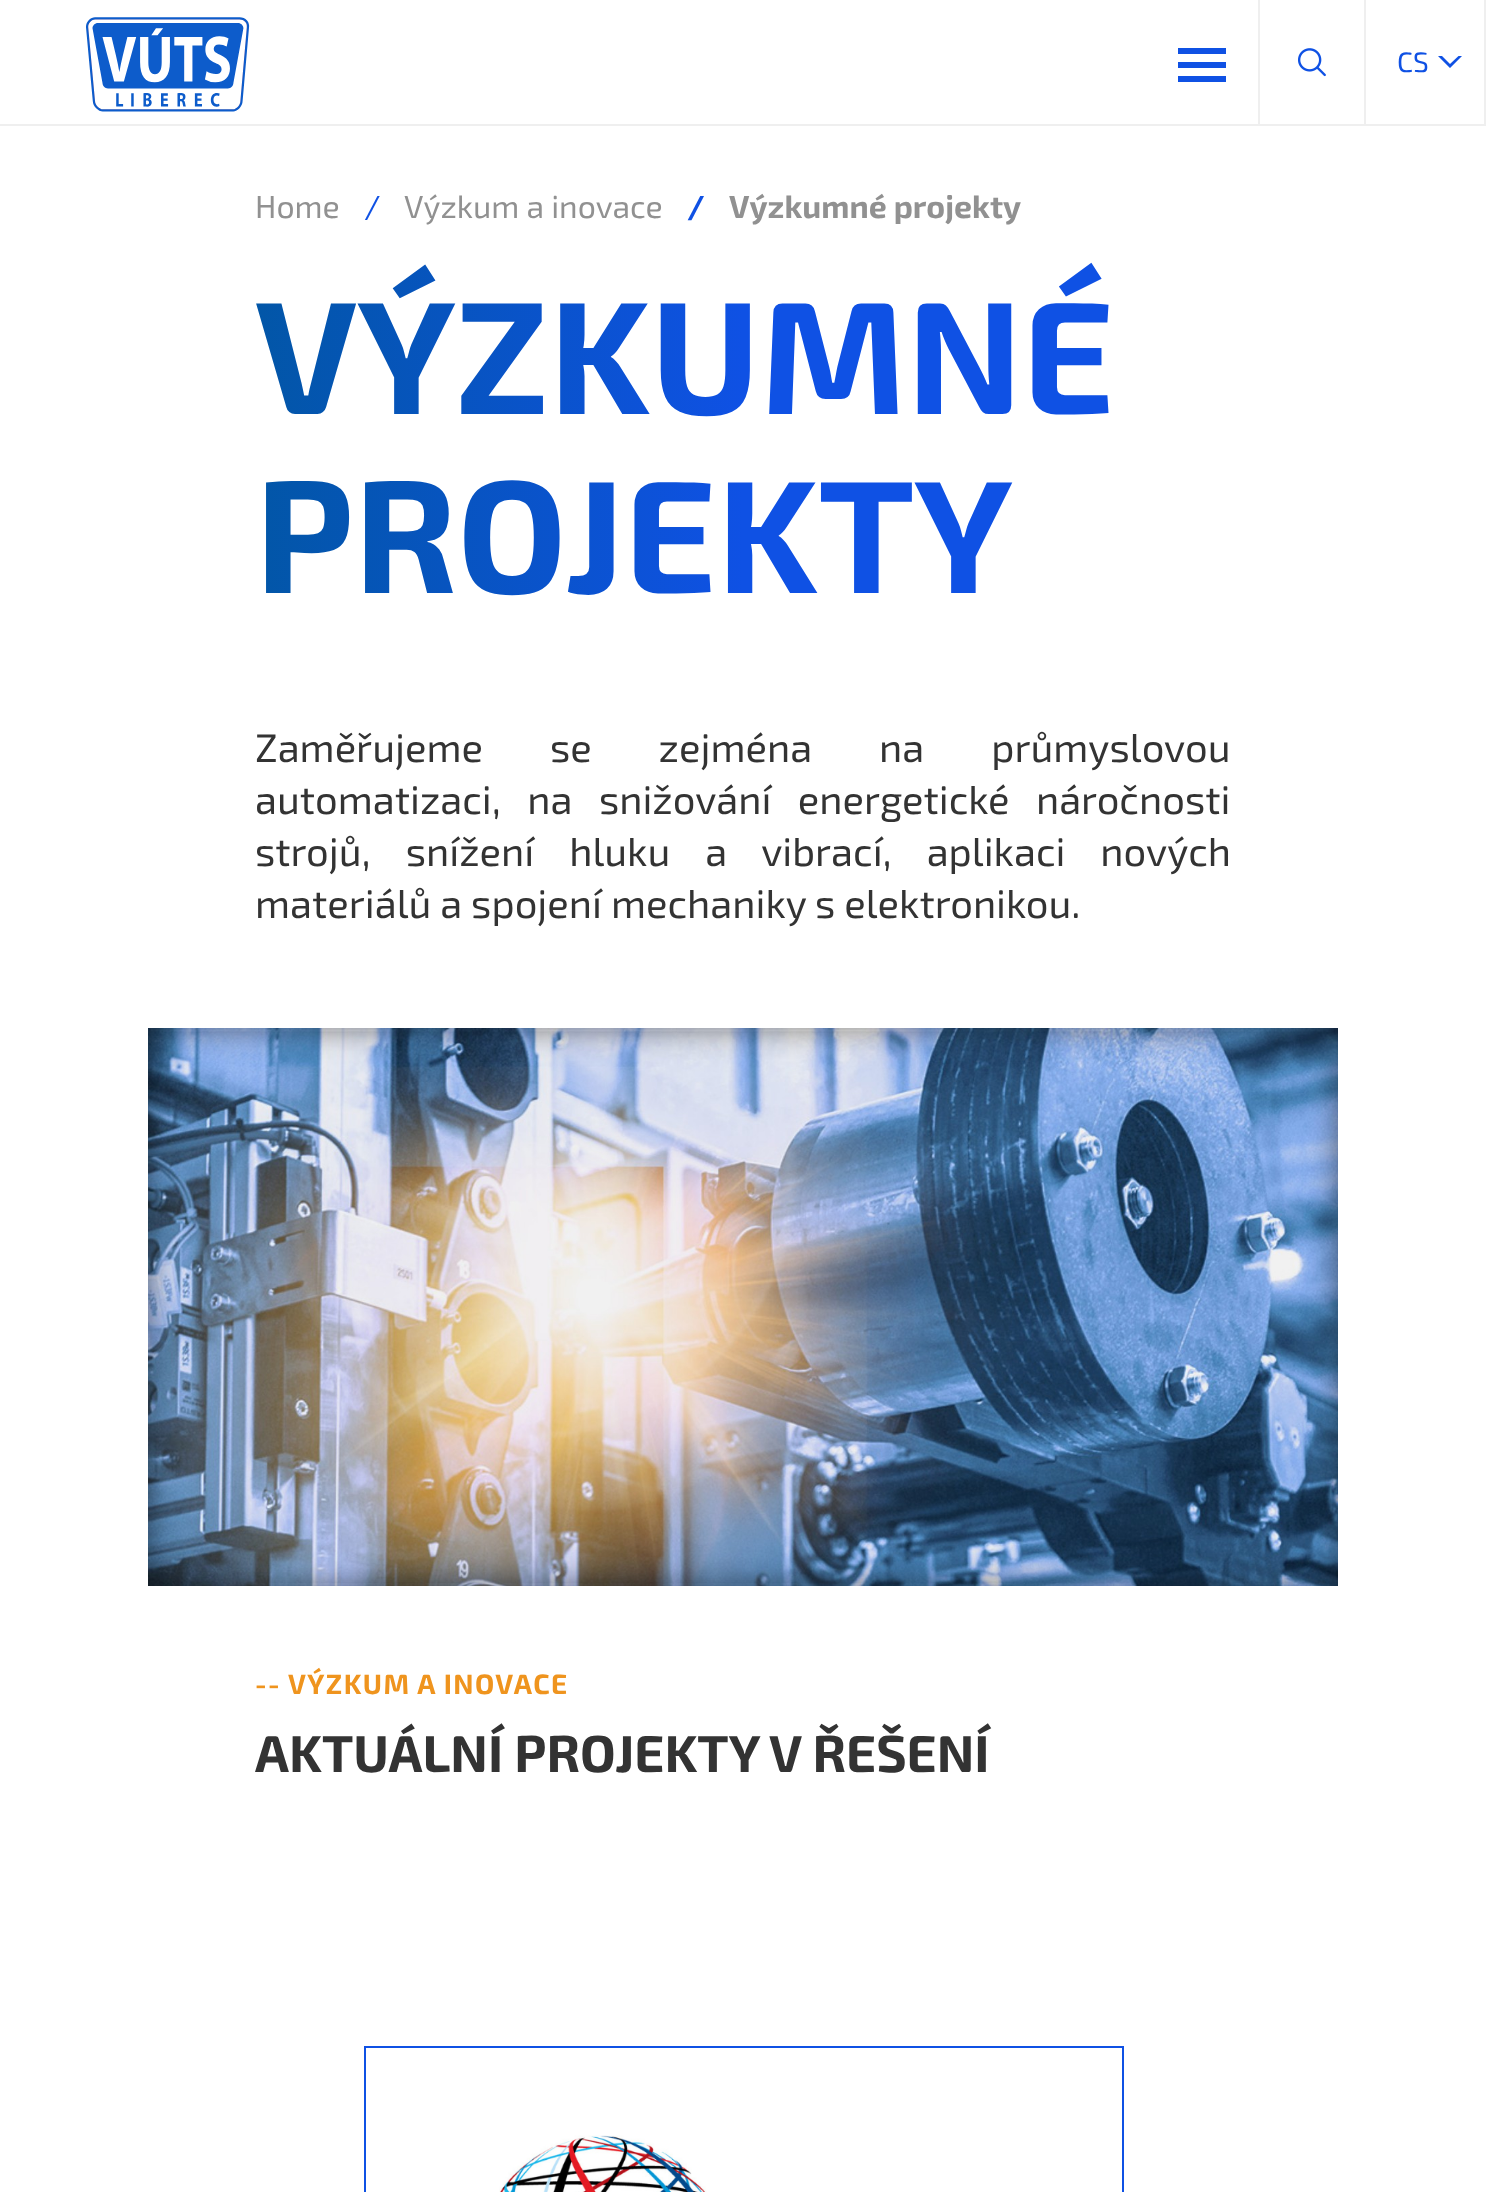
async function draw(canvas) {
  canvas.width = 1486;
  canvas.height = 2192;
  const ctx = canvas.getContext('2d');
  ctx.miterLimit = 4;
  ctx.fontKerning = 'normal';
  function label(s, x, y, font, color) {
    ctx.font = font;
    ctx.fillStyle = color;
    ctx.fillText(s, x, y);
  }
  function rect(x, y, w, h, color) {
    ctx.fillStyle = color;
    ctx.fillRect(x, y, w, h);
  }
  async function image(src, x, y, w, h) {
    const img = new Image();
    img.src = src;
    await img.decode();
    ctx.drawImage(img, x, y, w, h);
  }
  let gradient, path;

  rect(0, 0, 1486, 2192, '#fff');
  rect(0, 124, 1486, 2, '#efefef');
  await image('assets/img1.png', 86, 17, 164, 95);
  rect(1258, 0, 2, 124, '#efefef');
  rect(1178, 48, 48, 6, '#0f51e4');
  rect(1178, 62, 48, 6, '#0f51e4');
  rect(1178, 76, 48, 6, '#0f51e4');
  rect(1364, 0, 2, 124, '#efefef');
  await image('assets/img2.png', 1298, 48, 28, 29);
  rect(1484, 0, 2, 124, '#efefef');
  label('CS', 1397, 72, '28px "Exo 2"', '#0f51e4');
  path = new Path2D('M1458.5 56L1450 64L1442 56H1438L1450 68L1462 56Z');
  ctx.fill(path);
  label('Home', 255, 218, '32px "Exo 2"', '#919191');
  label('/', 364, 218, '32px "Exo 2"', '#0f51e4');
  label('Výzkum a inovace', 404, 218, '32px "Exo 2"', '#919191');
  label('/', 687, 218, 'bold 32px "Exo 2"', '#0f51e4');
  label('Výzkumné projekty', 729, 218, 'bold 32px "Exo 2"', '#919191');
  ctx.font = 'bold 160px "Exo 2"';
  gradient = ctx.createLinearGradient(255, 473, 1231, 473);
  gradient.addColorStop(0, '#0256a7');
  gradient.addColorStop(0.5, '#0f51e4');
  ctx.fillStyle = gradient;
  ctx.fillText('VÝZKUMNÉ', 255, 414);
  ctx.fillText('PROJEKTY', 255, 593);
  ctx.wordSpacing = '58px';
  label('Zaměřujeme se zejména na průmyslovou', 255, 762, '40px "Exo 2"', '#333');
  ctx.wordSpacing = '17.5px';
  label('automatizaci, na snižování energetické náročnosti', 255, 814, '40px "Exo 2"', '#333');
  ctx.wordSpacing = '26px';
  label('strojů, snížení hluku a vibrací, aplikaci nových', 255, 866, '40px "Exo 2"', '#333');
  ctx.wordSpacing = '0px';
  label('materiálů a spojení mechaniky s elektronikou.', 255, 918, '40px "Exo 2"', '#333');
  await image('assets/img3.png', 148, 1028, 1190, 558);
  ctx.letterSpacing = '1.4px';
  label('--', 255, 1694, 'bold 28px "Exo 2"', '#ef941e');
  label('VÝZKUM A INOVACE', 288, 1694, 'bold 28px "Exo 2"', '#ef941e');
  ctx.letterSpacing = '0px';
  label('AKTUÁLNÍ PROJEKTY V ŘEŠENÍ', 255, 1772, 'bold 52px "Exo 2"', '#333');
  ctx.strokeStyle = '#0f51e4';
  ctx.lineWidth = 2;
  ctx.strokeRect(365, 2047, 758, 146);
  await image('assets/img4.png', 499, 2135, 208, 57);
}

draw(document.querySelector('canvas'));
